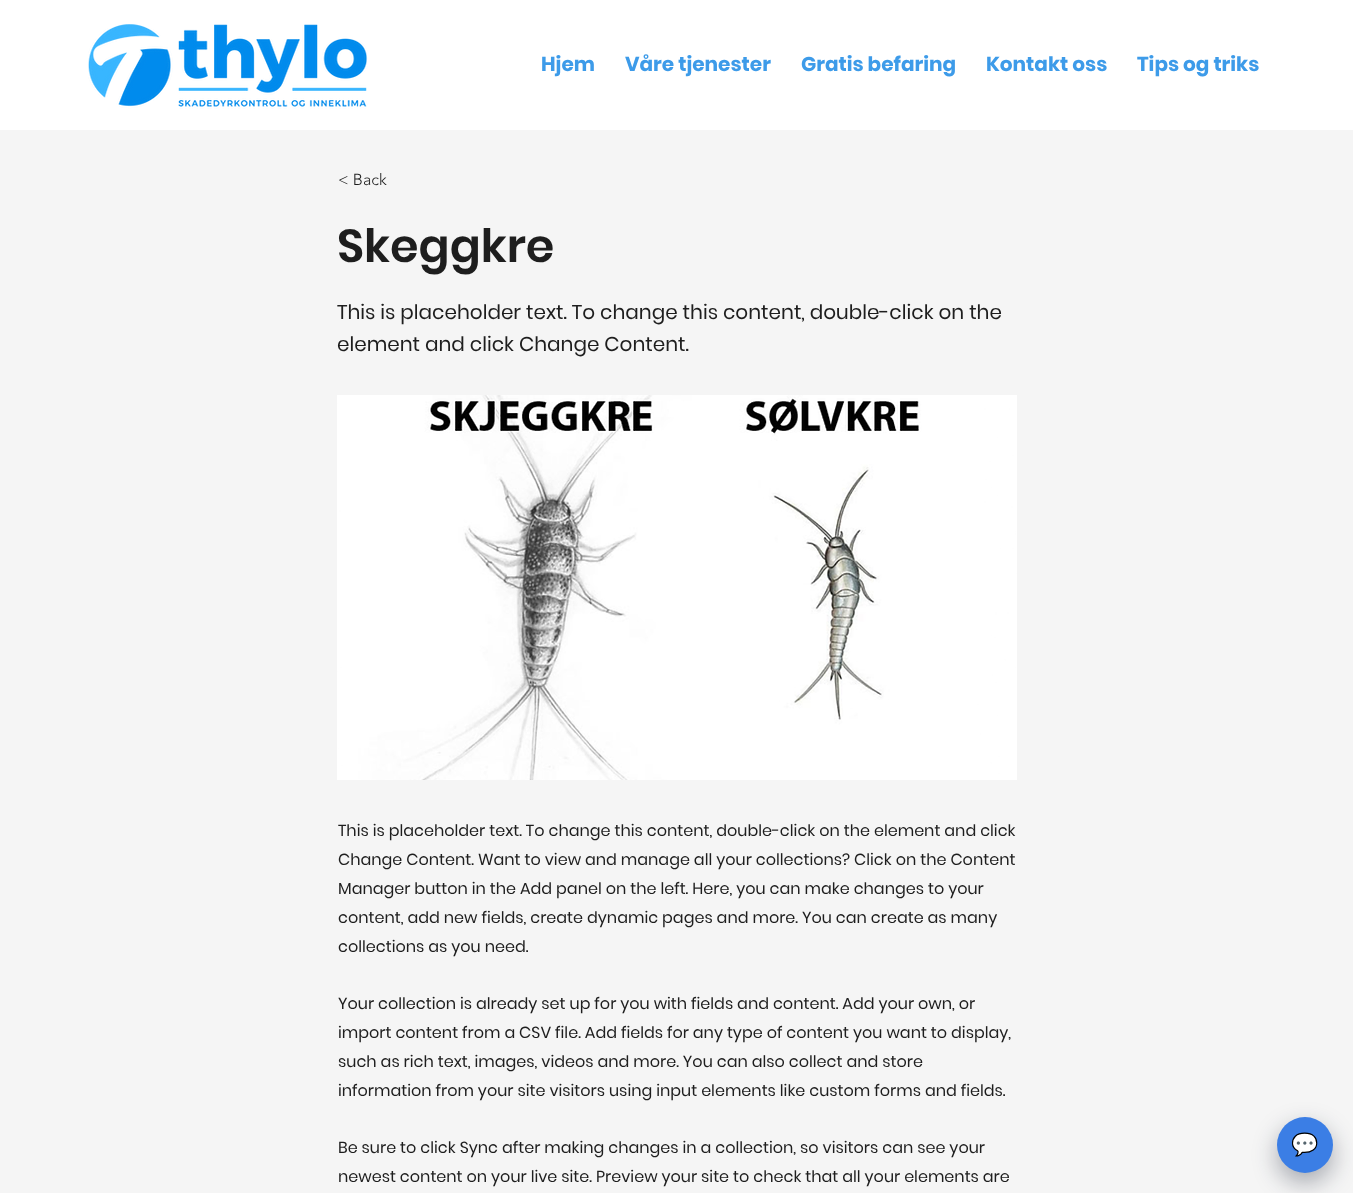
async function draw(canvas) {
  canvas.width = 1353;
  canvas.height = 1193;
  const ctx = canvas.getContext('2d');
  ctx.miterLimit = 4;
  ctx.fontKerning = 'normal';
  function label(s, x, y, font, color) {
    ctx.font = font;
    ctx.fillStyle = color;
    ctx.fillText(s, x, y);
  }
  function rect(x, y, w, h, color) {
    ctx.fillStyle = color;
    ctx.fillRect(x, y, w, h);
  }
  async function image(src, x, y, w, h) {
    const img = new Image();
    img.src = src;
    await img.decode();
    ctx.drawImage(img, x, y, w, h);
  }

  rect(0, 0, 1353, 1193, '#f5f5f5');
  rect(0, 0, 1353, 130, '#fff');
  await image('assets/img1.png', 88, 24, 280, 85);
  label('Hjem', 541, 71, 'bold 20px Poppins', '#3d9be9');
  label('Våre tjenester', 625, 71, 'bold 20px Poppins', '#3d9be9');
  label('Gratis befaring', 801, 71, 'bold 20px Poppins', '#3d9be9');
  label('Kontakt oss', 986, 71, 'bold 20px Poppins', '#3d9be9');
  label('Tips og triks', 1137, 71, 'bold 20px Poppins', '#3d9be9');
  label('< Back', 338, 185, '300 16px "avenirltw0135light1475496"', '#1e1e1e');
  label('Skeggkre', 337, 262, '600 46px Poppins', '#1e1e1e');
  label('This is placeholder text. To change this content, double-click on the', 337, 319, '20px Poppins', '#1e1e1e');
  label('element and click Change Content.', 337, 351, '20px Poppins', '#1e1e1e');
  await image('assets/img2.png', 337, 395, 680, 385);
  label('This is placeholder text. To change this content, double-click on the element and click', 338, 836, '16px Poppins', '#1e1e1e');
  label('Change Content. Want to view and manage all your collections? Click on the Content', 338, 865, '16px Poppins', '#1e1e1e');
  label('Manager button in the Add panel on the left. Here, you can make changes to your', 338, 894, '16px Poppins', '#1e1e1e');
  label('content, add new fields, create dynamic pages and more. You can create as many', 338, 923, '16px Poppins', '#1e1e1e');
  label('collections as you need.', 338, 952, '16px Poppins', '#1e1e1e');
  label('Your collection is already set up for you with fields and content. Add your own, or', 338, 1009, '16px Poppins', '#1e1e1e');
  label('import content from a CSV file. Add fields for any type of content you want to display,', 338, 1038, '16px Poppins', '#1e1e1e');
  label('such as rich text, images, videos and more. You can also collect and store', 338, 1067, '16px Poppins', '#1e1e1e');
  label('information from your site visitors using input elements like custom forms and fields.', 338, 1096, '16px Poppins', '#1e1e1e');
  label('Be sure to click Sync after making changes in a collection, so visitors can see your', 338, 1153, '16px Poppins', '#1e1e1e');
  label('newest content on your live site. Preview your site to check that all your elements are', 338, 1182, '16px Poppins', '#1e1e1e');
  ctx.fillStyle = '#0f172a59';
  ctx.filter = 'blur(12.5px)';
  ctx.beginPath();
  ctx.roundRect(1277, 1127, 56, 56, 28);
  ctx.fill();
  ctx.filter = 'none';
  ctx.fillStyle = '#3b7ee5';
  ctx.beginPath();
  ctx.arc(1305, 1145, 28, 0, 2 * Math.PI);
  ctx.fill();
  label('💬', 1291, 1152, '22px Noto Color Emoji', '#fff');
}

draw(document.querySelector('canvas'));
